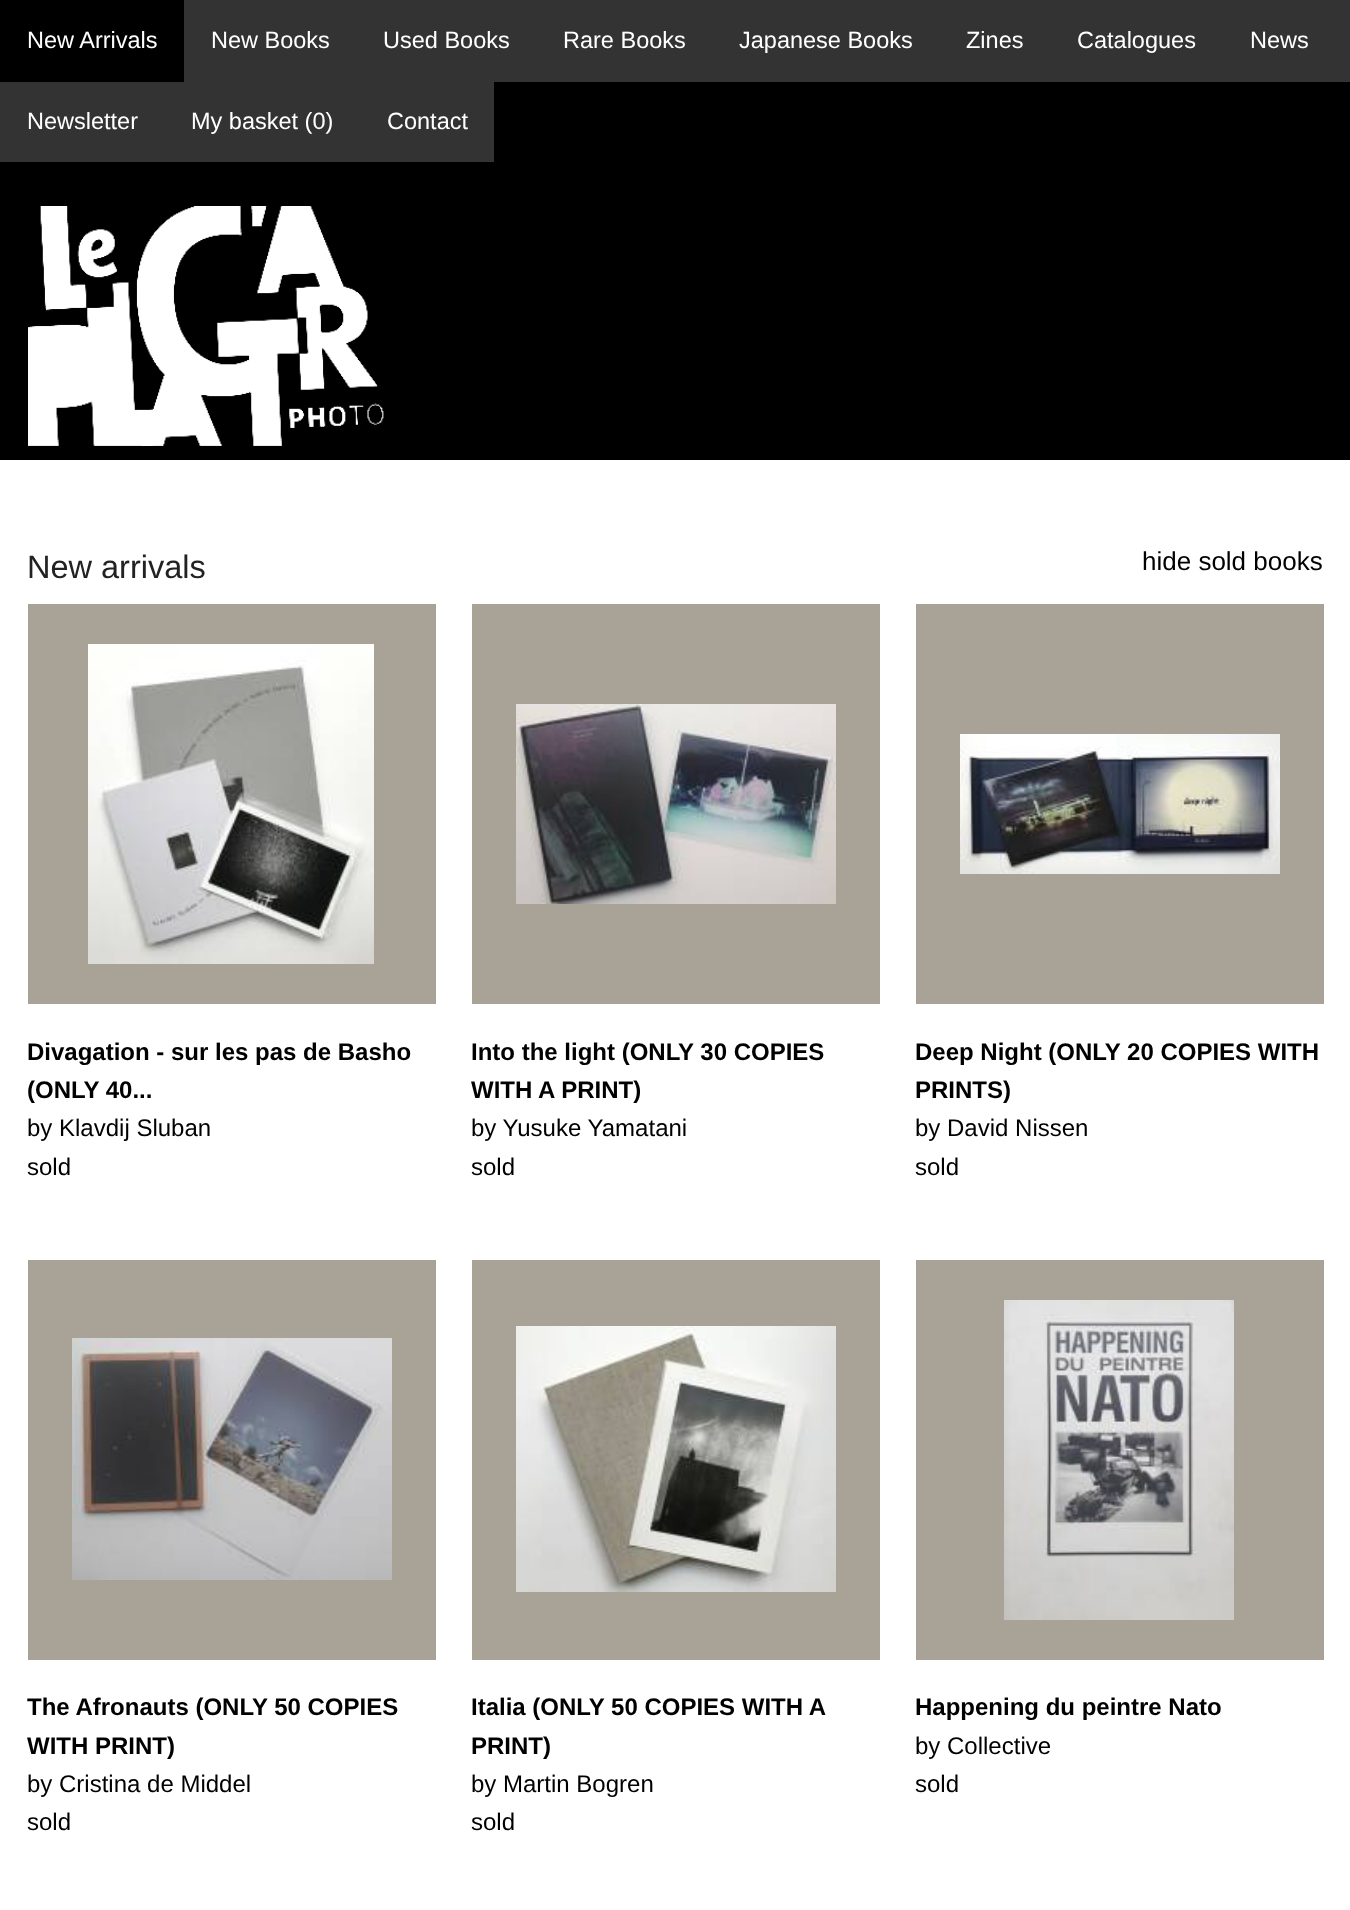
async function draw(canvas) {
  canvas.width = 1350;
  canvas.height = 1910;
  const ctx = canvas.getContext('2d');
  ctx.miterLimit = 4;
  ctx.fontKerning = 'normal';
  function label(s, x, y, font, color) {
    ctx.font = font;
    ctx.fillStyle = color;
    ctx.fillText(s, x, y);
  }
  function rect(x, y, w, h, color) {
    ctx.fillStyle = color;
    ctx.fillRect(x, y, w, h);
  }
  async function image(src, x, y, w, h) {
    const img = new Image();
    img.src = src;
    await img.decode();
    ctx.drawImage(img, x, y, w, h);
  }

  rect(0, 0, 1350, 1910, '#fff');
  rect(184, 0, 1166, 82, '#333');
  rect(0, 0, 184, 82, '#000');
  label('New Arrivals', 27, 48, '23.5px Liberation Sans', '#fff');
  label('New Books', 211, 48, '23.5px Liberation Sans', '#fff');
  label('Used Books', 383, 48, '23.5px Liberation Sans', '#fff');
  label('Rare Books', 563, 48, '23.5px Liberation Sans', '#fff');
  label('Japanese Books', 739, 48, '23.5px Liberation Sans', '#fff');
  label('Zines', 966, 48, '23.5px Liberation Sans', '#fff');
  label('Catalogues', 1077, 48, '23.5px Liberation Sans', '#fff');
  label('News', 1250, 48, '23.5px Liberation Sans', '#fff');
  rect(0, 82, 1350, 378, '#000');
  rect(0, 82, 494, 80, '#333');
  label('Newsletter', 27, 129, '23.5px Liberation Sans', '#fff');
  label('My basket (0)', 191, 129, '23.5px Liberation Sans', '#fff');
  label('Contact', 387, 129, '23.5px Liberation Sans', '#fff');
  await image('assets/img1.png', 28, 206, 356, 240);
  label('New arrivals', 27, 578, '32.5px Liberation Sans', '#222');
  label('hide sold books', 1142, 570, '26px Liberation Sans', '#000');
  rect(28, 604, 408, 400, '#a9a397');
  await image('assets/img2.png', 88, 644, 286, 320);
  label('Divagation - sur les pas de Basho', 27, 1060, 'bold 24px Liberation Sans', '#000');
  label('(ONLY 40...', 27, 1098, 'bold 24px Liberation Sans', '#000');
  label('by Klavdij Sluban', 27, 1136, '24px Liberation Sans', '#000');
  label('sold', 27, 1175, '24px Liberation Sans', '#000');
  rect(472, 604, 408, 400, '#a9a397');
  await image('assets/img3.png', 516, 704, 320, 200);
  label('Into the light (ONLY 30 COPIES', 471, 1060, 'bold 24px Liberation Sans', '#000');
  label('WITH A PRINT)', 471, 1098, 'bold 24px Liberation Sans', '#000');
  label('by Yusuke Yamatani', 471, 1136, '24px Liberation Sans', '#000');
  label('sold', 471, 1175, '24px Liberation Sans', '#000');
  rect(916, 604, 408, 400, '#a9a397');
  await image('assets/img4.png', 960, 734, 320, 140);
  label('Deep Night (ONLY 20 COPIES WITH', 915, 1060, 'bold 24px Liberation Sans', '#000');
  label('PRINTS)', 915, 1098, 'bold 24px Liberation Sans', '#000');
  label('by David Nissen', 915, 1136, '24px Liberation Sans', '#000');
  label('sold', 915, 1175, '24px Liberation Sans', '#000');
  rect(28, 1260, 408, 400, '#a9a397');
  await image('assets/img5.png', 72, 1338, 320, 242);
  label('The Afronauts (ONLY 50 COPIES', 27, 1715, 'bold 24px Liberation Sans', '#000');
  label('WITH PRINT)', 27, 1754, 'bold 24px Liberation Sans', '#000');
  label('by Cristina de Middel', 27, 1792, '24px Liberation Sans', '#000');
  label('sold', 27, 1830, '24px Liberation Sans', '#000');
  rect(472, 1260, 408, 400, '#a9a397');
  await image('assets/img6.png', 516, 1326, 320, 266);
  label('Italia (ONLY 50 COPIES WITH A', 471, 1715, 'bold 24px Liberation Sans', '#000');
  label('PRINT)', 471, 1754, 'bold 24px Liberation Sans', '#000');
  label('by Martin Bogren', 471, 1792, '24px Liberation Sans', '#000');
  label('sold', 471, 1830, '24px Liberation Sans', '#000');
  rect(916, 1260, 408, 400, '#a9a397');
  await image('assets/img7.png', 1004, 1300, 230, 320);
  label('Happening du peintre Nato', 915, 1715, 'bold 24px Liberation Sans', '#000');
  label('by Collective', 915, 1754, '24px Liberation Sans', '#000');
  label('sold', 915, 1792, '24px Liberation Sans', '#000');
}

draw(document.querySelector('canvas'));
